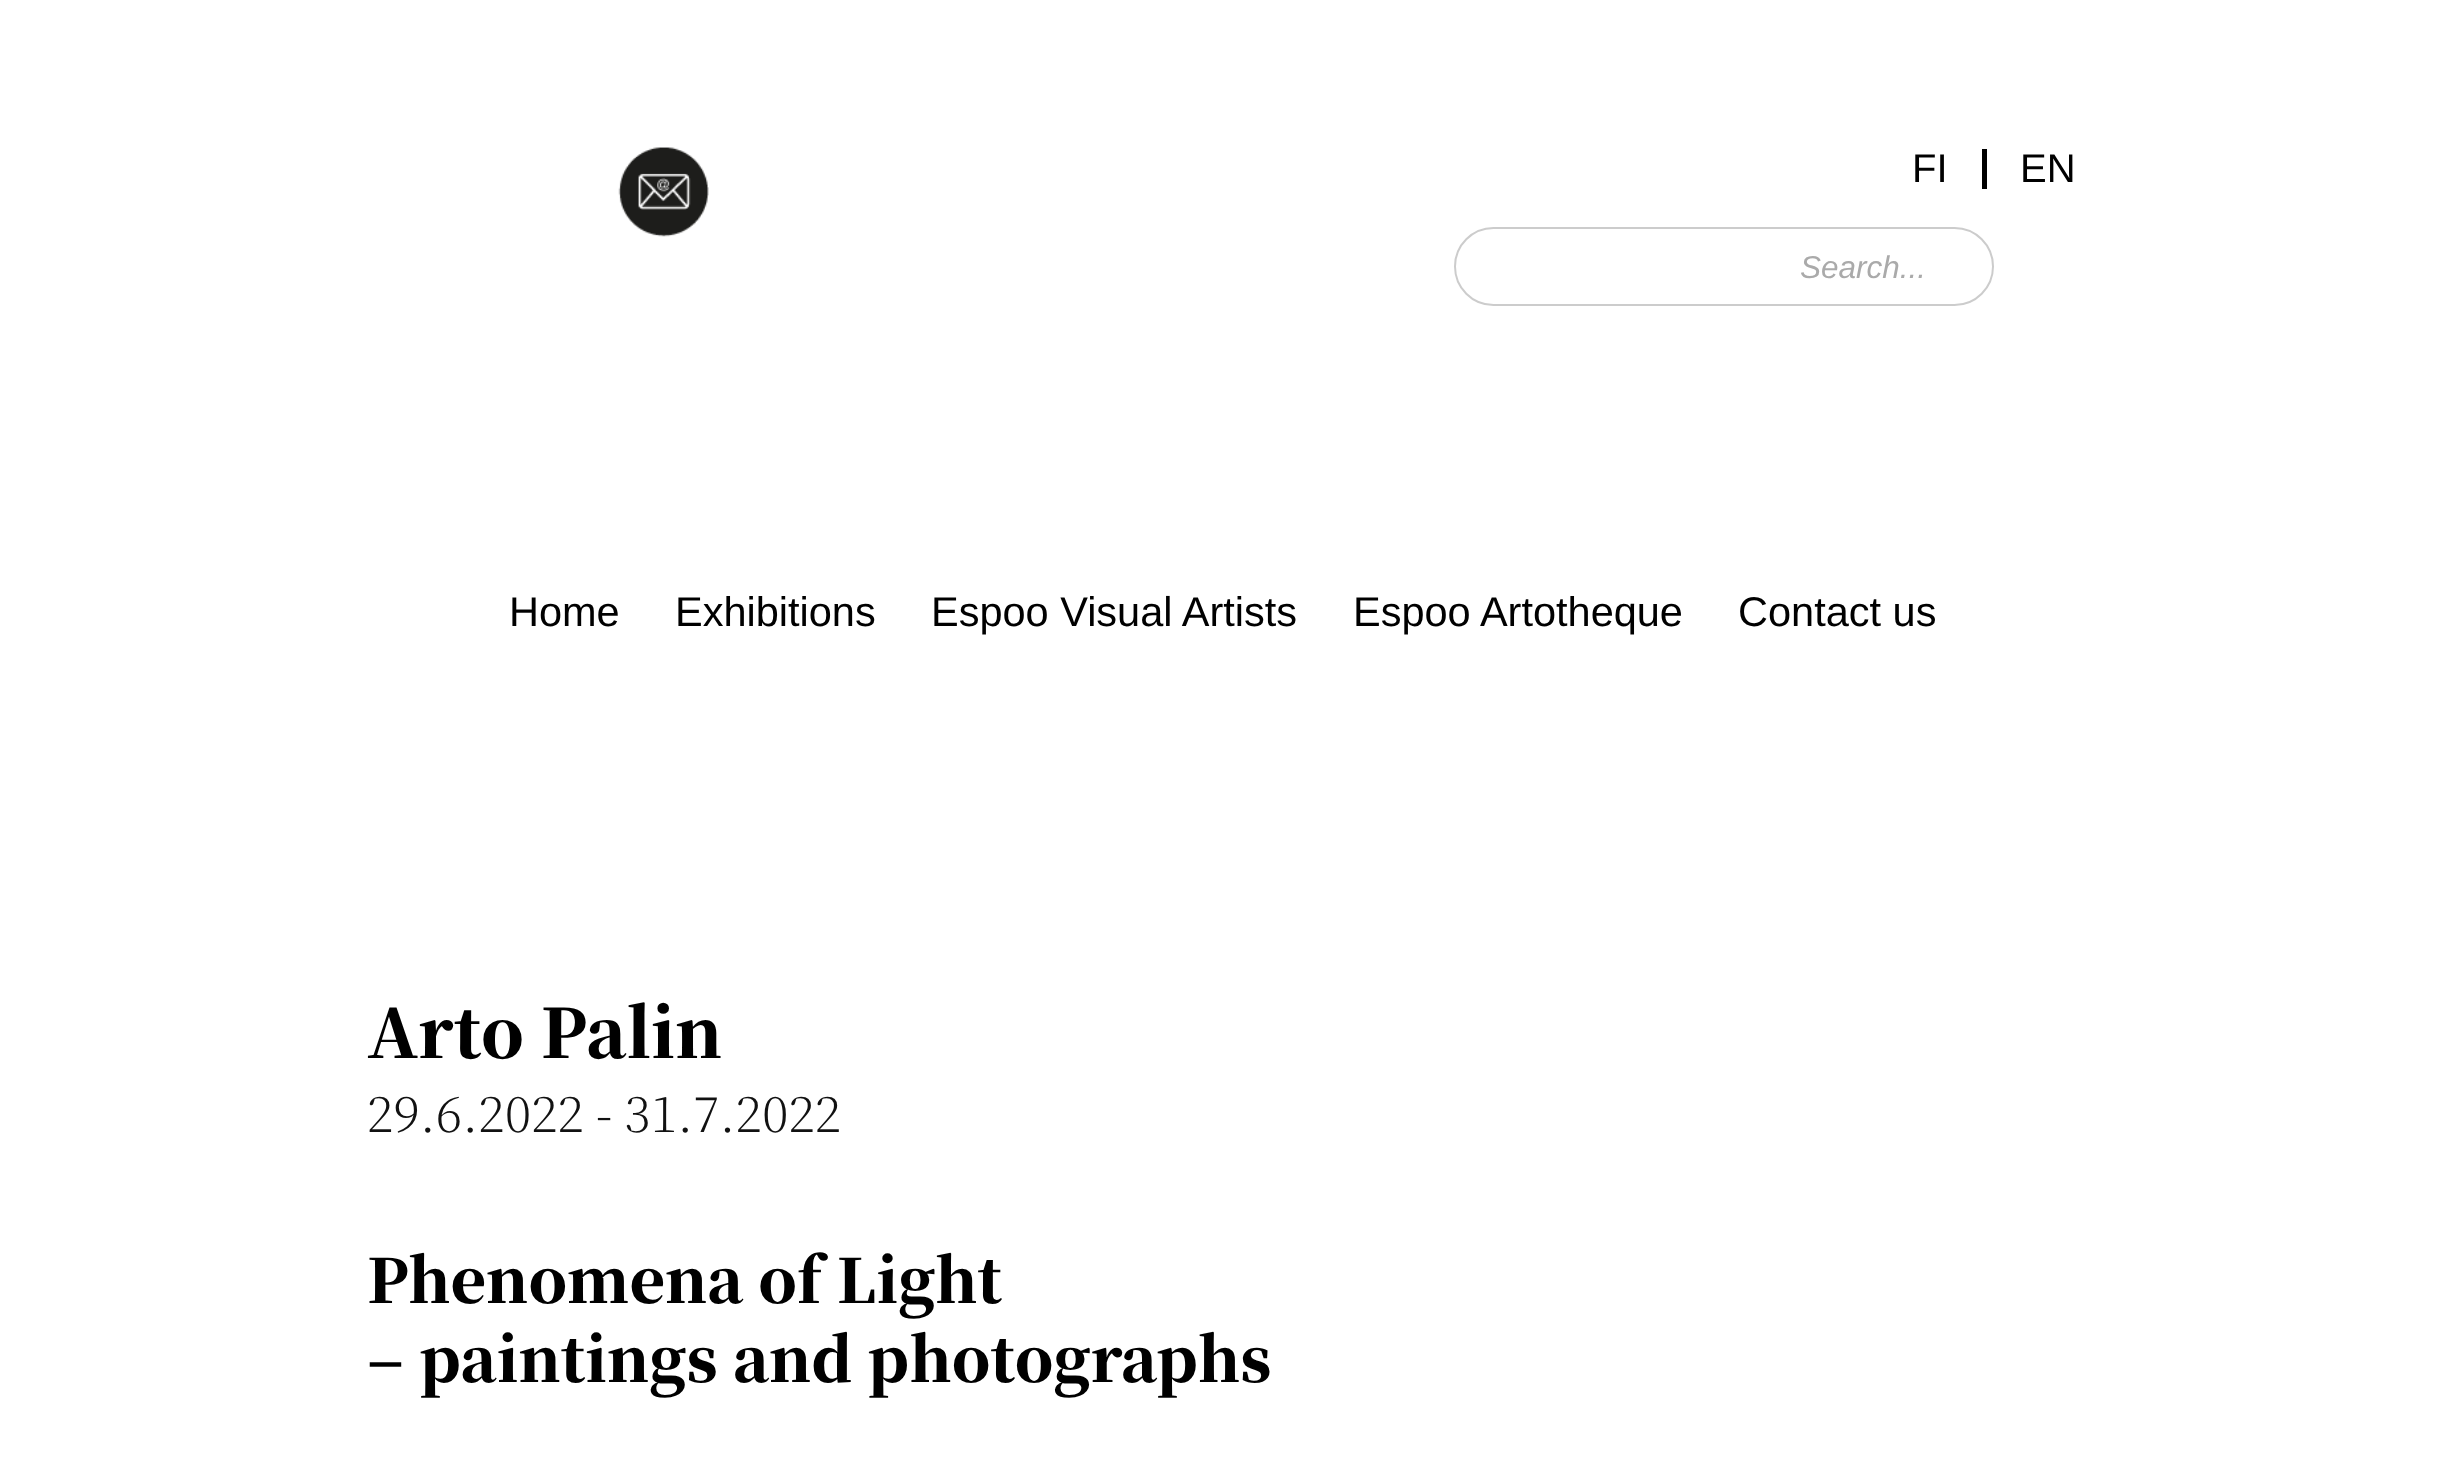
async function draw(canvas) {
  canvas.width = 2444;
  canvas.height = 1466;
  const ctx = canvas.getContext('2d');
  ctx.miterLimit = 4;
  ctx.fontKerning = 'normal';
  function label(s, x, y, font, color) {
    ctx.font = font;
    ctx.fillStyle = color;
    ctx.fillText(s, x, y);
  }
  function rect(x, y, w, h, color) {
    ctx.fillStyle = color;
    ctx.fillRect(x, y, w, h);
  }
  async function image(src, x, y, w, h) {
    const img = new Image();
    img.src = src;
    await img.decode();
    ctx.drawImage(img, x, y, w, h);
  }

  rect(0, 0, 2444, 1466, '#fff');
  await image('assets/img1.png', 618, 147, 91, 90);
  label('FI', 1912, 182, '40px Liberation Sans', '#000');
  rect(1982, 149, 5, 40, '#000');
  label('EN', 2020, 182, '40px Liberation Sans', '#000');
  ctx.beginPath();
  ctx.roundRect(1455, 228, 538, 77, 38.5);
  ctx.strokeStyle = '#ccc';
  ctx.lineWidth = 2;
  ctx.stroke();
  label('Search...', 1800, 278, 'italic 31.5px Liberation Sans', '#aaa');
  label('Home', 509, 626, '41.5px Liberation Sans', '#000');
  label('Exhibitions', 675, 626, '41.5px Liberation Sans', '#000');
  label('Espoo Visual Artists', 931, 626, '41.5px Liberation Sans', '#000');
  label('Espoo Artotheque', 1353, 626, '41.5px Liberation Sans', '#000');
  label('Contact us', 1738, 626, '41.5px Liberation Sans', '#000');
  label('Arto Palin', 367, 1058, '900 67.5px Noto Serif TC', '#000');
  ctx.wordSpacing = '-1px';
  label('29.6.2022 - 31.7.2022', 367, 1132, '200 49.5px Noto Serif TC', '#111');
  ctx.wordSpacing = '0px';
  label('Phenomena of Light', 367, 1303, '900 60.75px Noto Serif TC', '#000');
  label('– paintings and photographs', 367, 1382, '900 60.75px Noto Serif TC', '#000');
}

draw(document.querySelector('canvas'));
